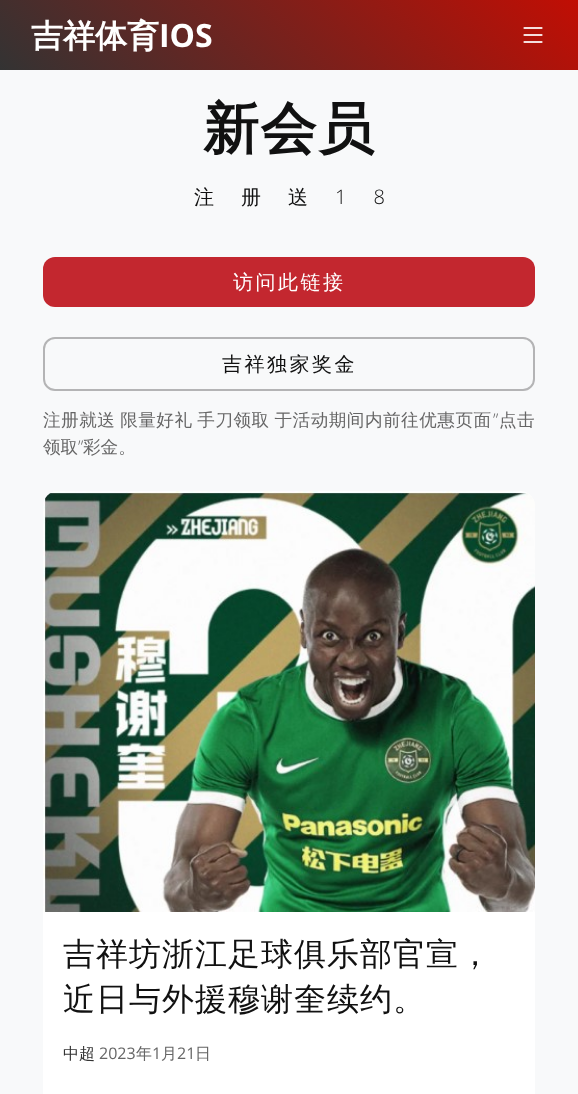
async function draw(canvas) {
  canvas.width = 578;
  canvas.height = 1094;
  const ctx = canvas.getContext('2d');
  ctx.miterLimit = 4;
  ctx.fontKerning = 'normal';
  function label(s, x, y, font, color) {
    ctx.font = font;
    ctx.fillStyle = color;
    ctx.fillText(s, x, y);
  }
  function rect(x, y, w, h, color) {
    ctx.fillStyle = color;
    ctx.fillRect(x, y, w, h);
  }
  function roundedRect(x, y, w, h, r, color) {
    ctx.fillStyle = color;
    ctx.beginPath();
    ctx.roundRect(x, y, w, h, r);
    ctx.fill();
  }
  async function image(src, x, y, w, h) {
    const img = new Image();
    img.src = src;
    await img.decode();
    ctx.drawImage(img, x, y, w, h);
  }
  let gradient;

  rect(0, 0, 578, 1094, '#fff');
  gradient = ctx.createLinearGradient(127, 197, 451, -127);
  gradient.addColorStop(0, '#333');
  gradient.addColorStop(1, '#c10e04');
  ctx.fillStyle = gradient;
  ctx.fillRect(0, 0, 578, 70);
  label('吉祥体育', 31, 47, 'bold 32px WenQuanYi Zen Hei', '#fff');
  label('IOS', 159, 47, 'bold 32px Open Sans', '#fff');
  await image('assets/img1.png', 523, 27, 20, 16);
  rect(0, 70, 578, 1024, '#f8f9fa');
  ctx.letterSpacing = '1.5px';
  label('新会员', 203, 148, 'bold 56px WenQuanYi Zen Hei', '#111');
  ctx.letterSpacing = '27px';
  label('注册送', 194, 204, '500 20px WenQuanYi Zen Hei', '#111');
  label('18', 335, 204, '300 20px Open Sans', '#111');
  roundedRect(43, 257, 492, 50, 12, '#c3272f');
  ctx.letterSpacing = '2.5px';
  label('访问此链接', 233, 289, '500 20px WenQuanYi Zen Hei', '#fff');
  ctx.beginPath();
  ctx.roundRect(44, 338, 490, 52, 11);
  ctx.strokeStyle = '#b4b4b5';
  ctx.lineWidth = 2;
  ctx.stroke();
  label('吉祥独家奖金', 222, 371, '500 20px WenQuanYi Zen Hei', '#111');
  ctx.letterSpacing = '0.5px';
  ctx.wordSpacing = '-1px';
  label('注册就送 限量好礼 手刀领取 于活动期间内前往优惠页面', 43, 426, '500 17.6px WenQuanYi Zen Hei', '#666');
  ctx.wordSpacing = '0px';
  label('”', 493, 426, '300 17.6px Open Sans', '#666');
  label('点击', 499, 426, '500 17.6px WenQuanYi Zen Hei', '#666');
  ctx.letterSpacing = '0px';
  label('领取', 43, 453, '500 17.6px WenQuanYi Zen Hei', '#666');
  label('”', 78, 453, '300 17.6px Open Sans', '#666');
  label('彩金。', 83, 453, '500 17.6px WenQuanYi Zen Hei', '#666');
  roundedRect(43, 491, 492, 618, 15, '#fff');
  await image('assets/img2.png', 43, 491, 492, 421);
  ctx.letterSpacing = '1px';
  label('吉祥坊浙江足球俱乐部官宣，', 63, 965, '500 32px WenQuanYi Zen Hei', '#111');
  label('近日与外援穆谢奎续约。', 63, 1010, '500 32px WenQuanYi Zen Hei', '#111');
  ctx.letterSpacing = '0px';
  label('中超', 63, 1059, '500 16px WenQuanYi Zen Hei', '#333');
  label('2023', 99, 1059, '16px Open Sans', '#666');
  label('年', 136, 1059, '500 16px WenQuanYi Zen Hei', '#666');
  label('1', 152, 1059, '16px Open Sans', '#666');
  label('月', 161, 1059, '500 16px WenQuanYi Zen Hei', '#666');
  label('21', 177, 1059, '16px Open Sans', '#666');
  label('日', 195, 1059, '500 16px WenQuanYi Zen Hei', '#666');
}

draw(document.querySelector('canvas'));
